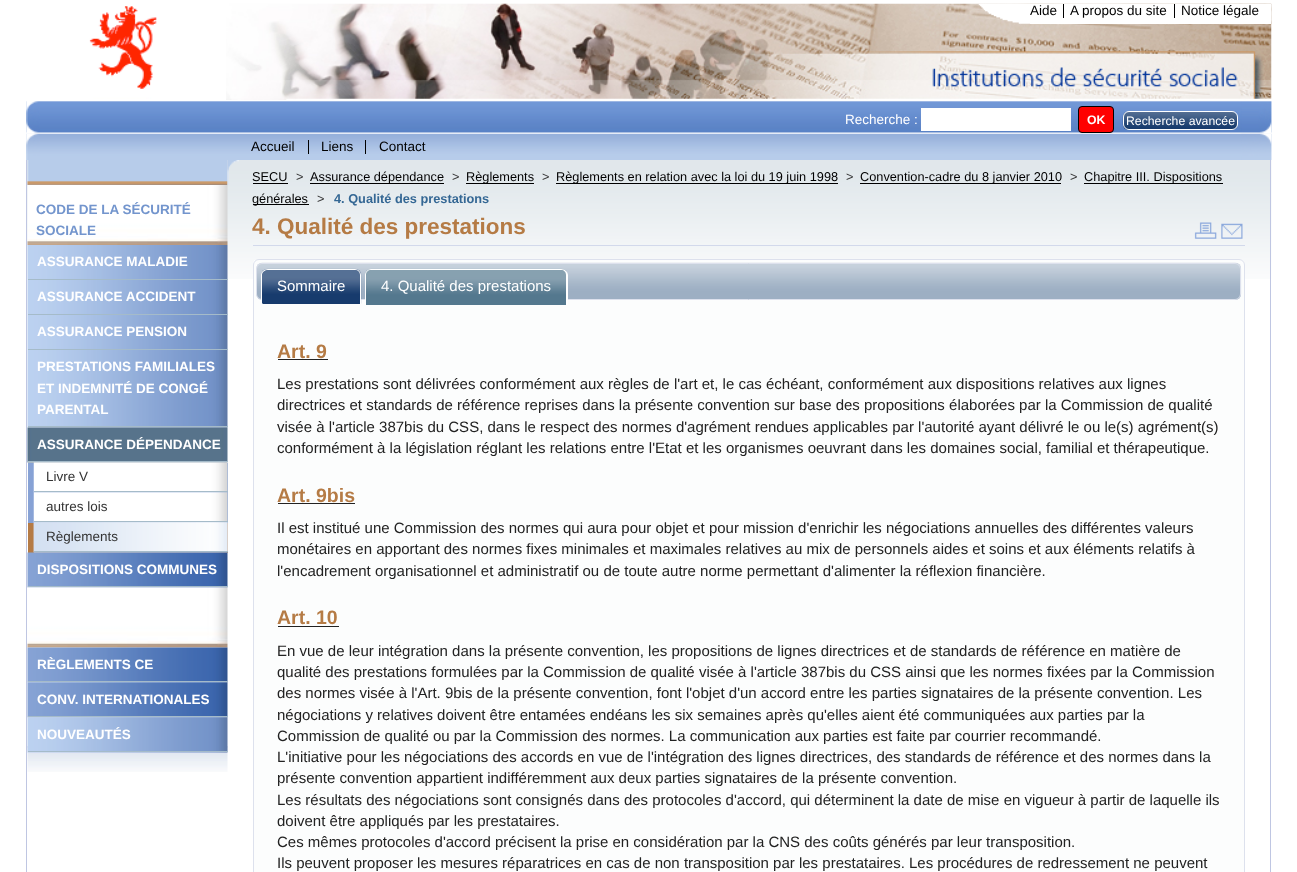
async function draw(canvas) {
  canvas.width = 1297;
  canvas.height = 872;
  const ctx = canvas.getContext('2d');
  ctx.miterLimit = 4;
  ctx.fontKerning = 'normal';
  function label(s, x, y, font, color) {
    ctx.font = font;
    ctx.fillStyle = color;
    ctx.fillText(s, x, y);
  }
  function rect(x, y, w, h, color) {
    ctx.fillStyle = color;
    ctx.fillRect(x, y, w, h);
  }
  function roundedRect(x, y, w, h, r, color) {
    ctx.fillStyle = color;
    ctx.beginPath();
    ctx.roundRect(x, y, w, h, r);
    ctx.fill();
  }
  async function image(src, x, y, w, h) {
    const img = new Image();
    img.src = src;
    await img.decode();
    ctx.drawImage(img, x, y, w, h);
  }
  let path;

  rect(0, 0, 1297, 872, '#fff');
  await image('assets/img1.png', 217, 3, 1055, 97);
  await image('assets/img2.png', 89, 6, 137, 94);
  rect(1030, 4, 241, 20, '#fff');
  label('Aide', 1030, 15, '13.5px Liberation Sans', '#000');
  await image('assets/img3.png', 978, 3, 52, 21);
  rect(1063, 4, 1, 14, '#000');
  rect(1174, 4, 1, 14, '#000');
  label('A propos du site', 1070, 15, '13.5px Liberation Sans', '#000');
  label('Notice légale', 1181, 15, '13.5px Liberation Sans', '#000');
  await image('assets/img4.png', 26, 101, 1246, 32);
  await image('assets/img8.png', 26, 133, 1246, 27);
  await image('assets/img5.png', 26, 101, 14, 33);
  label('Recherche :', 845, 124, '13.5px Liberation Sans', '#fff');
  rect(921, 108, 150, 23, '#fff');
  ctx.fillStyle = '#f00';
  ctx.beginPath();
  ctx.roundRect(1078.5, 106.5, 35, 26, 3.5);
  ctx.fill();
  ctx.strokeStyle = '#000';
  ctx.stroke();
  label('OK', 1087, 124, 'bold 12.25px Liberation Sans', '#fff');
  await image('assets/img6.png', 1122, 111, 116, 19);
  ctx.beginPath();
  ctx.roundRect(1123.5, 111.5, 114, 18, 5.5);
  ctx.strokeStyle = '#fff';
  ctx.stroke();
  label('Recherche avancée', 1126, 125, '12.25px Liberation Sans', '#fff');
  await image('assets/img7.png', 1241, 101, 31, 33);
  await image('assets/img9.png', 26, 133, 14, 27);
  rect(308, 140, 1, 14, '#000');
  label('Accueil', 251, 151, '13.5px Liberation Sans', '#000');
  rect(365, 140, 1, 14, '#000');
  label('Liens', 321, 151, '13.5px Liberation Sans', '#000');
  label('Contact', 379, 151, '13.5px Liberation Sans', '#000');
  await image('assets/img10.png', 1241, 133, 31, 27);
  await image('assets/img11.png', 27, 160, 1245, 119);
  rect(1270, 160, 1, 712, '#bfc6e2');
  rect(26, 160, 1, 712, '#bfc6e2');
  await image('assets/img12.png', 27, 160, 201, 25);
  await image('assets/img13.png', 227, 160, 12, 25);
  await image('assets/img14.png', 27, 746, 201, 26);
  await image('assets/img15.png', 27, 185, 201, 60);
  label('CODE DE LA SÉCURITÉ', 36, 214, 'bold 13.5px Liberation Sans', '#7395cd');
  label('SOCIALE', 36, 235, 'bold 13.5px Liberation Sans', '#7395cd');
  await image('assets/img16.png', 27, 245, 201, 35);
  rect(28, 279, 200, 1, '#a5bbc9');
  label('ASSURANCE MALADIE', 37, 266, 'bold 13.5px Liberation Sans', '#fff');
  await image('assets/img17.png', 27, 280, 201, 35);
  rect(28, 314, 200, 1, '#a5bbc9');
  label('ASSURANCE ACCIDENT', 37, 301, 'bold 13.5px Liberation Sans', '#fff');
  await image('assets/img17.png', 27, 315, 201, 35);
  rect(28, 349, 200, 1, '#a5bbc9');
  label('ASSURANCE PENSION', 37, 336, 'bold 13.5px Liberation Sans', '#fff');
  await image('assets/img18.png', 27, 350, 201, 78);
  rect(28, 426, 200, 1, '#a5bbc9');
  label('PRESTATIONS FAMILIALES', 37, 371, 'bold 13.5px Liberation Sans', '#fff');
  label('ET INDEMNITÉ DE CONGÉ', 37, 393, 'bold 13.5px Liberation Sans', '#fff');
  label('PARENTAL', 37, 414, 'bold 13.5px Liberation Sans', '#fff');
  await image('assets/img19.png', 27, 427, 201, 36);
  rect(28, 461, 200, 1, '#a5bbc9');
  label('ASSURANCE DÉPENDANCE', 37, 449, 'bold 13.5px Liberation Sans', '#fff');
  rect(28, 463, 200, 60, '#87a2d5');
  await image('assets/img20.png', 33, 462, 195, 31);
  rect(34, 491, 194, 1, '#a5bbc9');
  label('Livre V', 46, 481, '13.5px Liberation Sans', '#343434');
  await image('assets/img21.png', 33, 492, 195, 31);
  rect(34, 521, 194, 1, '#a5bbc9');
  label('autres lois', 46, 511, '13.5px Liberation Sans', '#343434');
  rect(28, 523, 200, 30, '#b57b45');
  await image('assets/img22.png', 33, 522, 195, 31);
  await image('assets/img23.png', 33, 522, 195, 31);
  rect(34, 551, 194, 1, '#a5bbc9');
  label('Règlements', 46, 541, '13.5px Liberation Sans', '#343434');
  await image('assets/img24.png', 27, 552, 201, 36);
  rect(28, 586, 200, 1, '#a5bbc9');
  label('DISPOSITIONS COMMUNES', 37, 574, 'bold 13.5px Liberation Sans', '#fff');
  await image('assets/img25.png', 27, 587, 201, 61);
  await image('assets/img26.png', 27, 647, 201, 36);
  rect(28, 681, 200, 1, '#a5bbc9');
  label('RÈGLEMENTS CE', 37, 669, 'bold 13.5px Liberation Sans', '#fff');
  await image('assets/img27.png', 27, 682, 201, 36);
  rect(28, 716, 200, 1, '#a5bbc9');
  label('CONV. INTERNATIONALES', 37, 704, 'bold 13.5px Liberation Sans', '#fff');
  await image('assets/img28.png', 27, 717, 201, 36);
  rect(28, 751, 200, 1, '#a5bbc9');
  label('NOUVEAUTÉS', 37, 739, 'bold 13.5px Liberation Sans', '#fff');
  label('SECU', 252, 181, '12.75px Liberation Sans', '#000');
  rect(253, 183, 35, 1, '#000');
  label('>', 296, 181, '12.75px Liberation Sans', '#343434');
  rect(310, 183, 134, 1, '#000');
  label('Assurance dépendance', 310, 181, '12.75px Liberation Sans', '#000');
  label('>', 452, 181, '12.75px Liberation Sans', '#343434');
  rect(466, 183, 68, 1, '#000');
  label('Règlements', 466, 181, '12.75px Liberation Sans', '#000');
  label('>', 542, 181, '12.75px Liberation Sans', '#343434');
  rect(556, 183, 282, 1, '#000');
  label('Règlements en relation avec la loi du 19 juin 1998', 556, 181, '12.75px Liberation Sans', '#000');
  label('>', 846, 181, '12.75px Liberation Sans', '#343434');
  rect(860, 183, 201, 1, '#000');
  label('Convention-cadre du 8 janvier 2010', 860, 181, '12.75px Liberation Sans', '#000');
  label('>', 1070, 181, '12.75px Liberation Sans', '#343434');
  rect(1084, 183, 139, 1, '#000');
  label('Chapitre III. Dispositions', 1084, 181, '12.75px Liberation Sans', '#000');
  rect(253, 204, 56, 1, '#000');
  label('générales', 252, 203, '12.75px Liberation Sans', '#000');
  label('>', 317, 203, '12.75px Liberation Sans', '#343434');
  label('4. Qualité des prestations', 334, 203, 'bold 12.75px Liberation Sans', '#346794');
  rect(253, 245, 992, 1, '#d2d9eb');
  label('4. Qualité des prestations', 252, 234, 'bold 22.5px Liberation Sans', '#b57b45');
  await image('assets/img29.png', 1194, 222, 23, 17);
  await image('assets/img30.png', 1221, 223, 22, 16);
  roundedRect(253, 259, 992, 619, 6, '#fcfdfd');
  await image('assets/img31.png', 253, 260, 2, 3);
  ctx.beginPath();
  ctx.roundRect(253.5, 259.5, 991, 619, 5.5);
  ctx.strokeStyle = '#dde1ed';
  ctx.stroke();
  await image('assets/img32.png', 256, 262, 986, 38);
  ctx.beginPath();
  ctx.roundRect(256.5, 263.5, 984, 36, 5.5);
  ctx.stroke();
  ctx.fillStyle = '#173b6d';
  ctx.beginPath();
  ctx.roundRect(263, 270, 97, 34, [5, 5, 0, 0]);
  ctx.fill();
  await image('assets/img33.png', 261, 268, 101, 36);
  ctx.fillStyle = '#fff';
  path = new Path2D('M268 269H355C358 269 361 272 361 275V304H261V275C261 272 264 269 268 269ZM268 270H355C358 270 360 272 360 275V304H262V275C262 272 265 270 268 270Z');
  ctx.fill(path, 'evenodd');
  label('Sommaire', 277, 291, '15px Liberation Sans', '#fff');
  await image('assets/img34.png', 365, 268, 203, 37);
  path = new Path2D('M371 269H561C565 269 568 272 568 275V305H365V275C365 272 368 269 371 269ZM371 270H561C564 270 566 272 566 275V305H366V275C366 272 368 270 371 270Z');
  ctx.fill(path, 'evenodd');
  label('4. Qualité des prestations', 381, 291, '15px Liberation Sans', '#fff');
  label('Art. 9', 277, 358, 'bold 19.5px Liberation Sans', '#b57b45');
  rect(278, 359, 50, 1, '#222');
  label('Les prestations sont délivrées conformément aux règles de l\'art et, le cas échéant, conformément aux dispositions relatives aux lignes', 277, 389, '15px Liberation Sans', '#222');
  label('directrices et standards de référence reprises dans la présente convention sur base des propositions élaborées par la Commission de qualité', 277, 410, '15px Liberation Sans', '#222');
  label('visée à l\'article 387bis du CSS, dans le respect des normes d\'agrément rendues applicables par l\'autorité ayant délivré le ou le(s) agrément(s)', 277, 432, '15px Liberation Sans', '#222');
  label('conformément à la législation réglant les relations entre l\'Etat et les organismes oeuvrant dans les domaines social, familial et thérapeutique.', 277, 453, '15px Liberation Sans', '#222');
  label('Art. 9bis', 277, 502, 'bold 19.5px Liberation Sans', '#b57b45');
  rect(278, 503, 77, 1, '#222');
  label('Il est institué une Commission des normes qui aura pour objet et pour mission d\'enrichir les négociations annuelles des différentes valeurs', 277, 533, '15px Liberation Sans', '#222');
  label('monétaires en apportant des normes fixes minimales et maximales relatives au mix de personnels aides et soins et aux éléments relatifs à', 277, 554, '15px Liberation Sans', '#222');
  label('l\'encadrement organisationnel et administratif ou de toute autre norme permettant d\'alimenter la réflexion financière.', 277, 576, '15px Liberation Sans', '#222');
  label('Art. 10', 277, 624, 'bold 19.5px Liberation Sans', '#b57b45');
  rect(278, 626, 61, 1, '#222');
  label('En vue de leur intégration dans la présente convention, les propositions de lignes directrices et de standards de référence en matière de', 277, 656, '15px Liberation Sans', '#222');
  label('qualité des prestations formulées par la Commission de qualité visée à l\'article 387bis du CSS ainsi que les normes fixées par la Commission', 277, 677, '15px Liberation Sans', '#222');
  label('des normes visée à l\'Art. 9bis de la présente convention, font l\'objet d\'un accord entre les parties signataires de la présente convention. Les', 277, 698, '15px Liberation Sans', '#222');
  label('négociations y relatives doivent être entamées endéans les six semaines après qu\'elles aient été communiquées aux parties par la', 277, 720, '15px Liberation Sans', '#222');
  label('Commission de qualité ou par la Commission des normes. La communication aux parties est faite par courrier recommandé.', 277, 741, '15px Liberation Sans', '#222');
  label('L\'initiative pour les négociations des accords en vue de l\'intégration des lignes directrices, des standards de référence et des normes dans la', 277, 762, '15px Liberation Sans', '#222');
  label('présente convention appartient indifféremment aux deux parties signataires de la présente convention.', 277, 783, '15px Liberation Sans', '#222');
  label('Les résultats des négociations sont consignés dans des protocoles d\'accord, qui déterminent la date de mise en vigueur à partir de laquelle ils', 277, 805, '15px Liberation Sans', '#222');
  label('doivent être appliqués par les prestataires.', 277, 826, '15px Liberation Sans', '#222');
  label('Ces mêmes protocoles d\'accord précisent la prise en considération par la CNS des coûts générés par leur transposition.', 277, 847, '15px Liberation Sans', '#222');
  label('Ils peuvent proposer les mesures réparatrices en cas de non transposition par les prestataires. Les procédures de redressement ne peuvent', 277, 868, '15px Liberation Sans', '#222');
}

draw(document.querySelector('canvas'));
